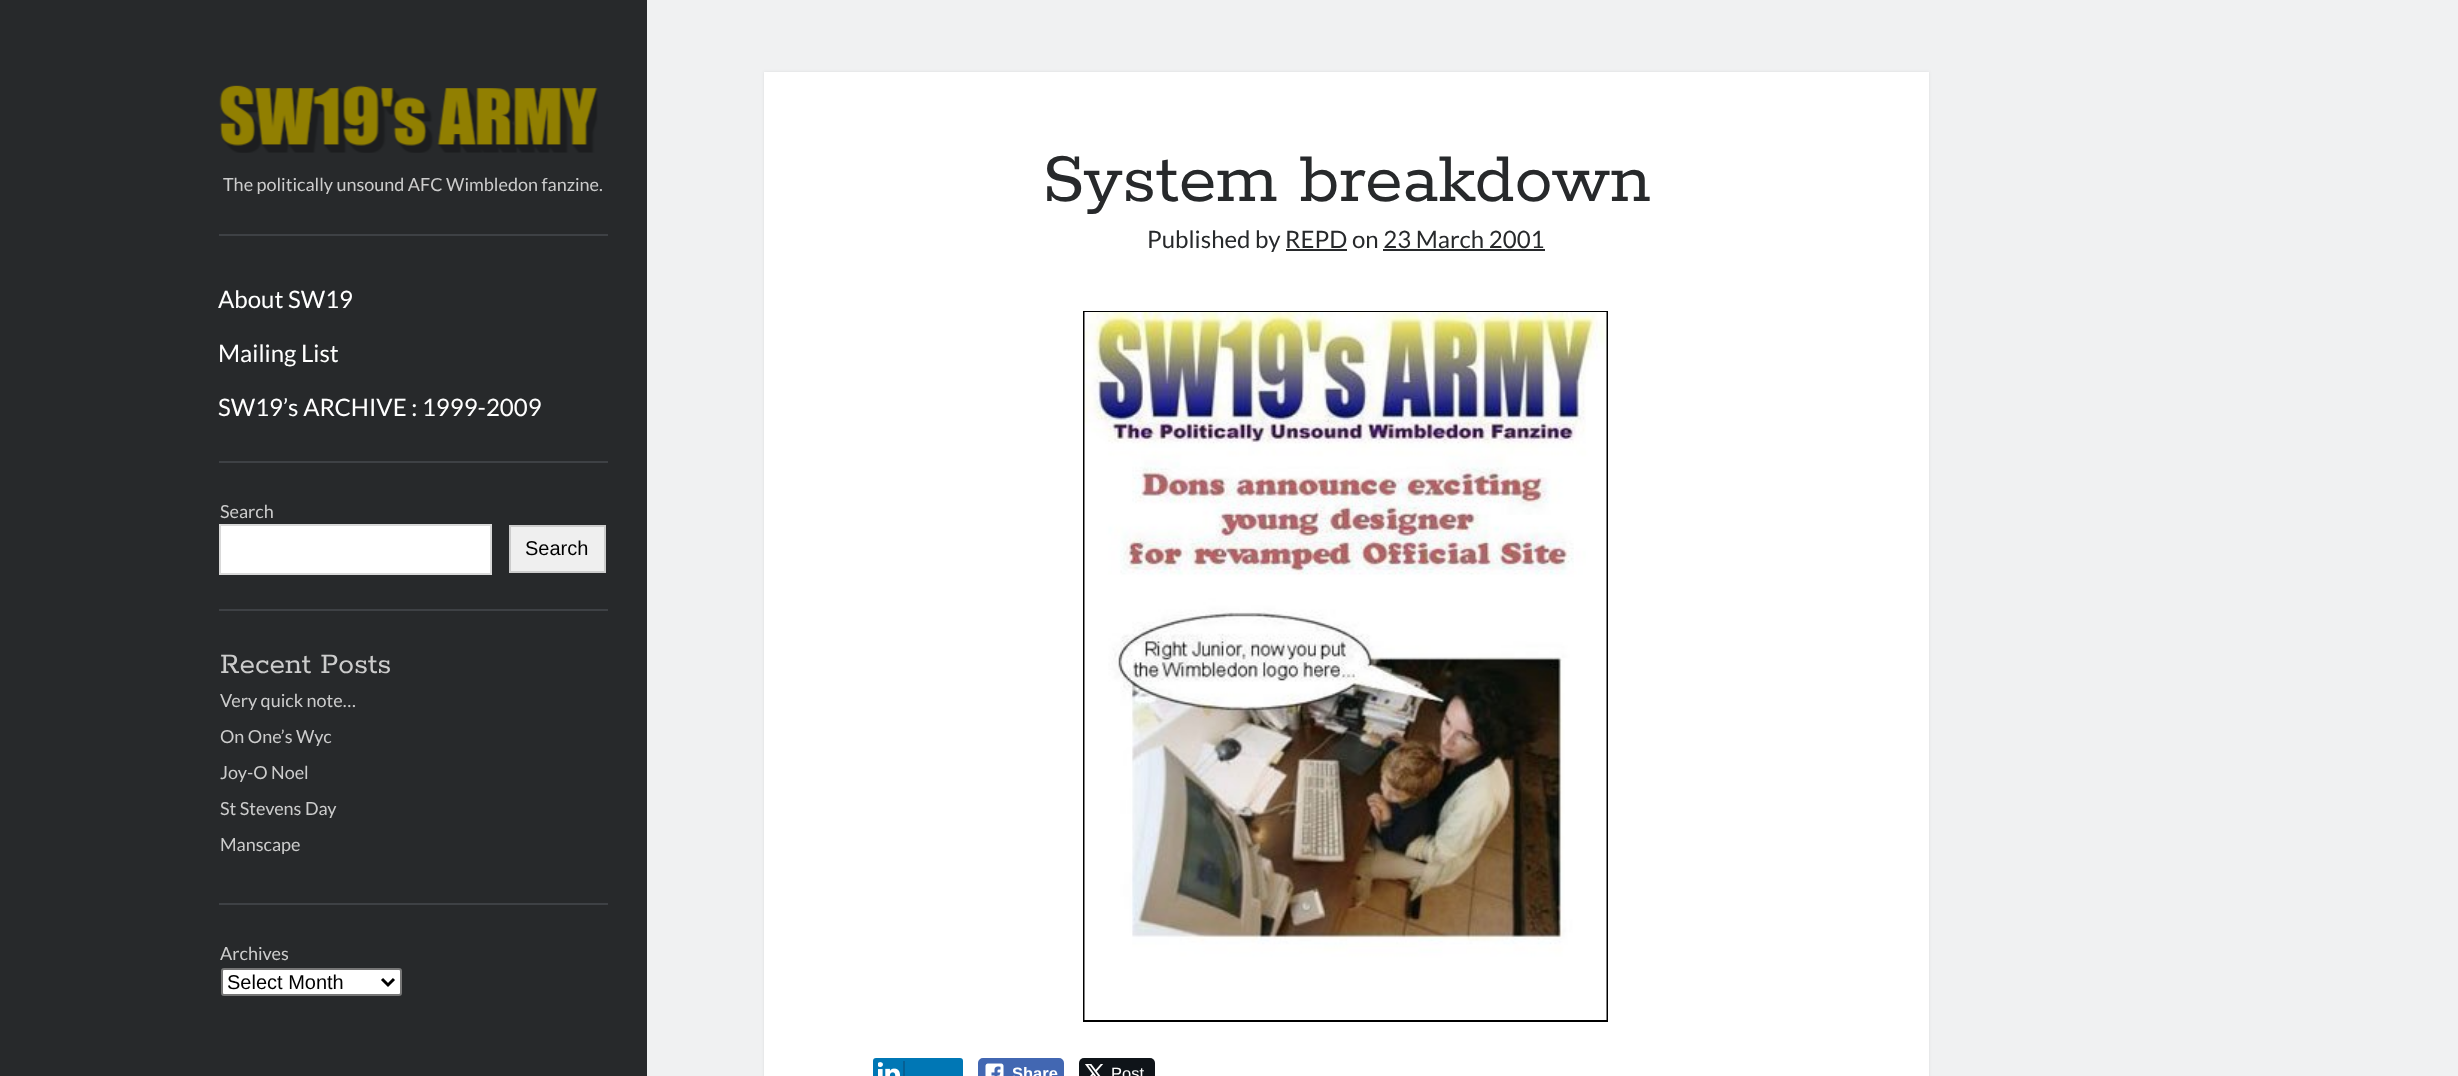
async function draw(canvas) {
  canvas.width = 2458;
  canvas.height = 1076;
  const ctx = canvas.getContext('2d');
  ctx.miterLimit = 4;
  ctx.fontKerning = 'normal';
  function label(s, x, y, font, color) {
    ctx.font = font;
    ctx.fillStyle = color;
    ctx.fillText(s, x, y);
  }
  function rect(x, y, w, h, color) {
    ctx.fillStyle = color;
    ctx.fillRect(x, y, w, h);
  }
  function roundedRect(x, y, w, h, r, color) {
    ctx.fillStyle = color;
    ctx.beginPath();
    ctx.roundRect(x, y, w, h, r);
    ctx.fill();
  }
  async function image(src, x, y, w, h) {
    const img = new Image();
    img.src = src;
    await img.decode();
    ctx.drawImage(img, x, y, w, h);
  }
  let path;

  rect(0, 0, 2458, 1076, '#27292b');
  rect(647, 0, 1811, 1076, '#f0f1f2');
  await image('assets/img1.png', 219, 85, 379, 68);
  label('The politically unsound AFC Wimbledon fanzine.', 223, 191, '18px Lato', '#ccc');
  rect(219, 234, 389, 2, '#3e4145');
  label('About SW19', 218, 308, '24px Lato', '#fff');
  label('Mailing List', 218, 362, '24px Lato', '#fff');
  label('SW19’s ARCHIVE : 1999-2009', 218, 416, '24px Lato', '#fff');
  rect(219, 461, 389, 2, '#3e4145');
  label('Search', 220, 518, '18px Lato', '#ccc');
  ctx.fillStyle = '#fff';
  ctx.beginPath();
  ctx.rect(220, 525, 271, 49);
  ctx.fill();
  ctx.strokeStyle = '#d9d9d9';
  ctx.lineWidth = 2;
  ctx.stroke();
  ctx.fillStyle = '#efefef';
  ctx.beginPath();
  ctx.rect(510, 526, 95, 46);
  ctx.fill();
  ctx.strokeStyle = '#ccc';
  ctx.stroke();
  label('Search', 525, 555, '20px Liberation Sans', '#000');
  rect(219, 609, 389, 2, '#3e4145');
  label('Recent Posts', 220, 673, '31.5px Rokkitt', '#ccc');
  label('Very quick note…', 220, 707, '18px Lato', '#ccc');
  label('On One’s Wyc', 220, 743, '18px Lato', '#ccc');
  label('Joy-O Noel', 220, 779, '18px Lato', '#ccc');
  label('St Stevens Day', 220, 815, '18px Lato', '#ccc');
  label('Manscape', 220, 851, '18px Lato', '#ccc');
  rect(219, 903, 389, 2, '#3e4145');
  label('Archives', 220, 960, '18px Lato', '#ccc');
  ctx.fillStyle = '#fff';
  ctx.beginPath();
  ctx.roundRect(222, 969, 179, 26, 2);
  ctx.fill();
  ctx.strokeStyle = '#767676';
  ctx.stroke();
  path = new Path2D('M382 979L388 985L394 979');
  ctx.strokeStyle = '#000';
  ctx.lineWidth = 3;
  ctx.stroke(path);
  label('Select Month', 227, 989, '20px Liberation Sans', '#000');
  ctx.fillStyle = '#272b2f1a';
  ctx.filter = 'blur(1.5px)';
  ctx.beginPath();
  ctx.rect(764, 72, 1165, 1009);
  ctx.fill();
  ctx.filter = 'none';
  rect(764, 72, 1165, 1004, '#fff');
  label('System breakdown', 1042, 201, '76.5px Rokkitt', '#27292b');
  label('Published by REPD on 23 March 2001', 1147, 248, '24px Lato', '#27292b');
  rect(1286, 249, 61, 2, '#27292b');
  rect(1383, 249, 162, 2, '#27292b');
  ctx.lineWidth = 2;
  ctx.strokeRect(1084, 312, 523, 709);
  await image('assets/img2.png', 1084, 312, 523, 708);
  ctx.fillStyle = '#0077b5';
  ctx.beginPath();
  ctx.roundRect(874, 1059, 88, 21, 2);
  ctx.fill();
  ctx.strokeStyle = '#0077b5';
  ctx.stroke();
  rect(903, 1061, 2, 15, '#066094');
  await image('assets/img3.png', 878, 1062, 22, 14);
  ctx.fillStyle = '#4267b2';
  ctx.beginPath();
  ctx.roundRect(979, 1059, 84, 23, 4);
  ctx.fill();
  ctx.strokeStyle = '#4267b2';
  ctx.stroke();
  await image('assets/img4.png', 985, 1063, 19, 13);
  label('Share', 1012, 1079, 'bold 16.5px Liberation Sans', '#fff');
  roundedRect(1079, 1058, 76, 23, 5, '#0f1419');
  await image('assets/img5.png', 1085, 1064, 19, 12);
  label('Post', 1111, 1079, '16.5px Liberation Sans', '#fff');
}

draw(document.querySelector('canvas'));
